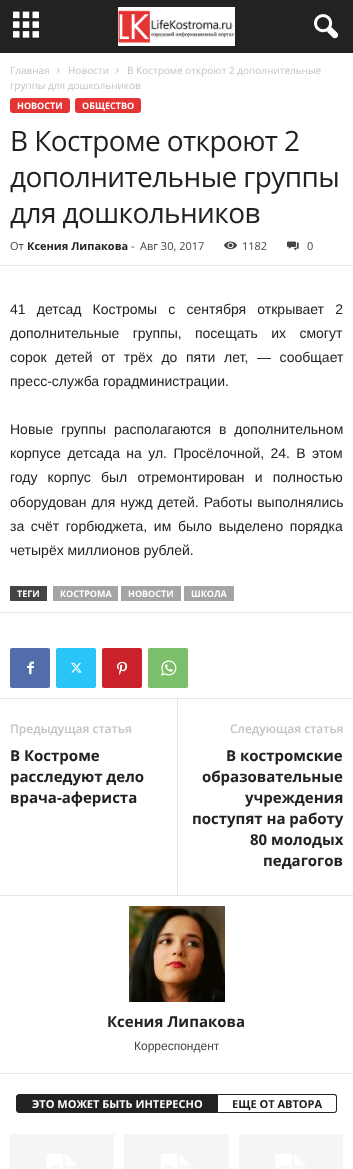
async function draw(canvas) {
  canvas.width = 353;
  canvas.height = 1169;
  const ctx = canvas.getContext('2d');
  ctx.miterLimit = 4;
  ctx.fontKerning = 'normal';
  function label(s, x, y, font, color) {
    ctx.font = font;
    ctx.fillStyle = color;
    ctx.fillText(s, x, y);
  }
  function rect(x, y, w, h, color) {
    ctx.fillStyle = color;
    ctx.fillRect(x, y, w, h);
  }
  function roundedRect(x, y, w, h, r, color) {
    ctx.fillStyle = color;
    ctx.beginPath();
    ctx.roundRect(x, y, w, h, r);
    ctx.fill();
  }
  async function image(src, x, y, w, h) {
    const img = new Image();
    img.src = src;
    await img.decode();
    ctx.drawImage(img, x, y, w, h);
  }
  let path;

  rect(0, 0, 353, 1169, '#fff');
  rect(0, 0, 353, 53, '#222');
  await image('assets/img1.png', 13, 11, 26, 27);
  await image('assets/img2.png', 118, 7, 117, 39);
  await image('assets/img3.png', 314, 14, 25, 25);
  label('Главная', 10, 74, '10px Open Sans', '#c3c3c3');
  await image('assets/img4.png', 57, 68, 3, 5);
  label('Новости', 68, 74, '10px Open Sans', '#c3c3c3');
  await image('assets/img4.png', 116, 68, 3, 5);
  label('В Костроме откроют 2 дополнительные', 127, 74, '10px Open Sans', '#c3c3c3');
  label('группы для дошкольников', 10, 89, '10px Open Sans', '#c3c3c3');
  roundedRect(10, 98, 60, 15, 3, '#e53434');
  label('НОВОСТИ', 17, 109, 'bold 9px Open Sans', '#fff');
  roundedRect(75, 98, 66, 15, 3, '#e53434');
  label('ОБЩЕСТВО', 82, 109, 'bold 9px Open Sans', '#fff');
  ctx.letterSpacing = '-0.6px';
  label('В Костроме откроют 2', 10, 151, '28px Open Sans', '#222');
  label('дополнительные группы', 10, 187, '28px Open Sans', '#222');
  label('для дошкольников', 10, 223, '28px Open Sans', '#222');
  ctx.letterSpacing = '0px';
  label('От', 10, 250, '11px Open Sans', '#444');
  label('Ксения Липакова', 27, 250, 'bold 11px Open Sans', '#222');
  label('-', 131, 250, '11px Open Sans', '#444');
  label('Авг 30, 2017', 140, 250, '11px Open Sans', '#444');
  await image('assets/img5.png', 224, 241, 13, 9);
  label('1182', 242, 250, '11px Open Sans', '#444');
  await image('assets/img6.png', 287, 241, 12, 10);
  label('0', 307, 250, '11px Open Sans', '#444');
  rect(0, 265, 353, 1, '#e6e6e6');
  ctx.wordSpacing = '7.25px';
  label('41 детсад Костромы с сентября открывает 2', 10, 314, '14px Liberation Sans', '#222');
  ctx.wordSpacing = '9.5px';
  label('дополнительные группы, посещать их смогут', 10, 338, '14px Liberation Sans', '#222');
  ctx.wordSpacing = '4.75px';
  label('сорок детей от трёх до пяти лет, — сообщает', 10, 362, '14px Liberation Sans', '#222');
  ctx.wordSpacing = '0px';
  label('пресс-служба горадминистрации.', 10, 386, '14px Liberation Sans', '#222');
  ctx.wordSpacing = '4px';
  label('Новые группы располагаются в дополнительном', 10, 434, '14px Liberation Sans', '#222');
  ctx.wordSpacing = '2.5px';
  label('корпусе детсада на ул. Просёлочной, 24. В этом', 10, 458, '14px Liberation Sans', '#222');
  ctx.wordSpacing = '6.25px';
  label('году корпус был отремонтирован и полностью', 10, 482, '14px Liberation Sans', '#222');
  ctx.wordSpacing = '1px';
  label('оборудован для нужд детей. Работы выполнялись', 10, 507, '14px Liberation Sans', '#222');
  ctx.wordSpacing = '2.75px';
  label('за счёт горбюджета, им было выделено порядка', 10, 531, '14px Liberation Sans', '#222');
  ctx.wordSpacing = '0px';
  label('четырёх миллионов рублей.', 10, 555, '14px Liberation Sans', '#222');
  rect(10, 586, 37, 15, '#444');
  label('ТЕГИ', 17, 597, 'bold 9px Open Sans', '#fff');
  rect(53, 586, 65, 15, '#a5a5a5');
  label('КОСТРОМА', 60, 597, 'bold 9px Open Sans', '#fff');
  rect(121, 586, 60, 15, '#a5a5a5');
  label('НОВОСТИ', 128, 597, 'bold 9px Open Sans', '#fff');
  rect(184, 586, 50, 15, '#a5a5a5');
  label('ШКОЛА', 191, 597, 'bold 9px Open Sans', '#fff');
  rect(0, 612, 353, 1, '#e6e6e6');
  roundedRect(10, 648, 40, 40, 2, '#516eab');
  await image('assets/img7.png', 27, 661, 7, 14);
  roundedRect(56, 648, 40, 40, 2, '#29c5f6');
  await image('assets/img8.png', 71, 662, 11, 11);
  roundedRect(102, 648, 40, 40, 2, '#ca212a');
  await image('assets/img9.png', 117, 661, 11, 14);
  roundedRect(148, 648, 40, 40, 2, '#7bbf6a');
  await image('assets/img10.png', 161, 660, 16, 16);
  rect(0, 698, 353, 1, '#e6e6e6');
  label('Предыдущая статья', 10, 733, '600 12px Open Sans', '#c3c3c3');
  label('В Костроме', 10, 761, 'bold 15px Open Sans', '#222');
  label('расследуют дело', 10, 782, 'bold 15px Open Sans', '#222');
  label('врача-афериста', 10, 803, 'bold 15px Open Sans', '#222');
  rect(177, 699, 1, 196, '#e6e6e6');
  label('Следующая статья', 230, 733, '600 12px Open Sans', '#c3c3c3');
  label('В костромские', 226, 761, 'bold 15px Open Sans', '#222');
  label('образовательные', 202, 782, 'bold 15px Open Sans', '#222');
  label('учреждения', 245, 803, 'bold 15px Open Sans', '#222');
  label('поступят на работу', 192, 824, 'bold 15px Open Sans', '#222');
  label('80 молодых', 250, 845, 'bold 15px Open Sans', '#222');
  label('педагогов', 263, 866, 'bold 15px Open Sans', '#222');
  rect(0, 895, 353, 1, '#e6e6e6');
  await image('assets/img11.png', 129, 906, 96, 96);
  label('Ксения Липакова', 107, 1027, 'bold 15px Open Sans', '#222');
  label('Корреспондент', 134, 1050, '12px Liberation Sans', '#444');
  rect(0, 1073, 353, 1, '#e6e6e6');
  ctx.fillStyle = '#222';
  ctx.beginPath();
  ctx.roundRect(16.5, 1094.5, 201, 18, [2.5, 0, 0, 2.5]);
  ctx.fill();
  ctx.strokeStyle = '#222';
  ctx.stroke();
  label('ЭТО МОЖЕТ БЫТЬ ИНТЕРЕСНО', 32, 1108, 'bold 11px Open Sans', '#fff');
  ctx.fillStyle = '#222';
  path = new Path2D('M218 1094H334C336 1094 337 1095 337 1097V1110C337 1112 336 1113 334 1113H218ZM218 1095H334C335 1095 336 1096 336 1097V1110C336 1111 335 1112 334 1112H218Z');
  ctx.fill(path, 'evenodd');
  label('ЕЩЕ ОТ АВТОРА', 232, 1108, 'bold 11px Open Sans', '#222');
  await image('assets/img12.png', 10, 1134, 104, 35);
  await image('assets/img13.png', 124, 1134, 105, 35);
  await image('assets/img12.png', 239, 1134, 104, 35);
}

draw(document.querySelector('canvas'));
